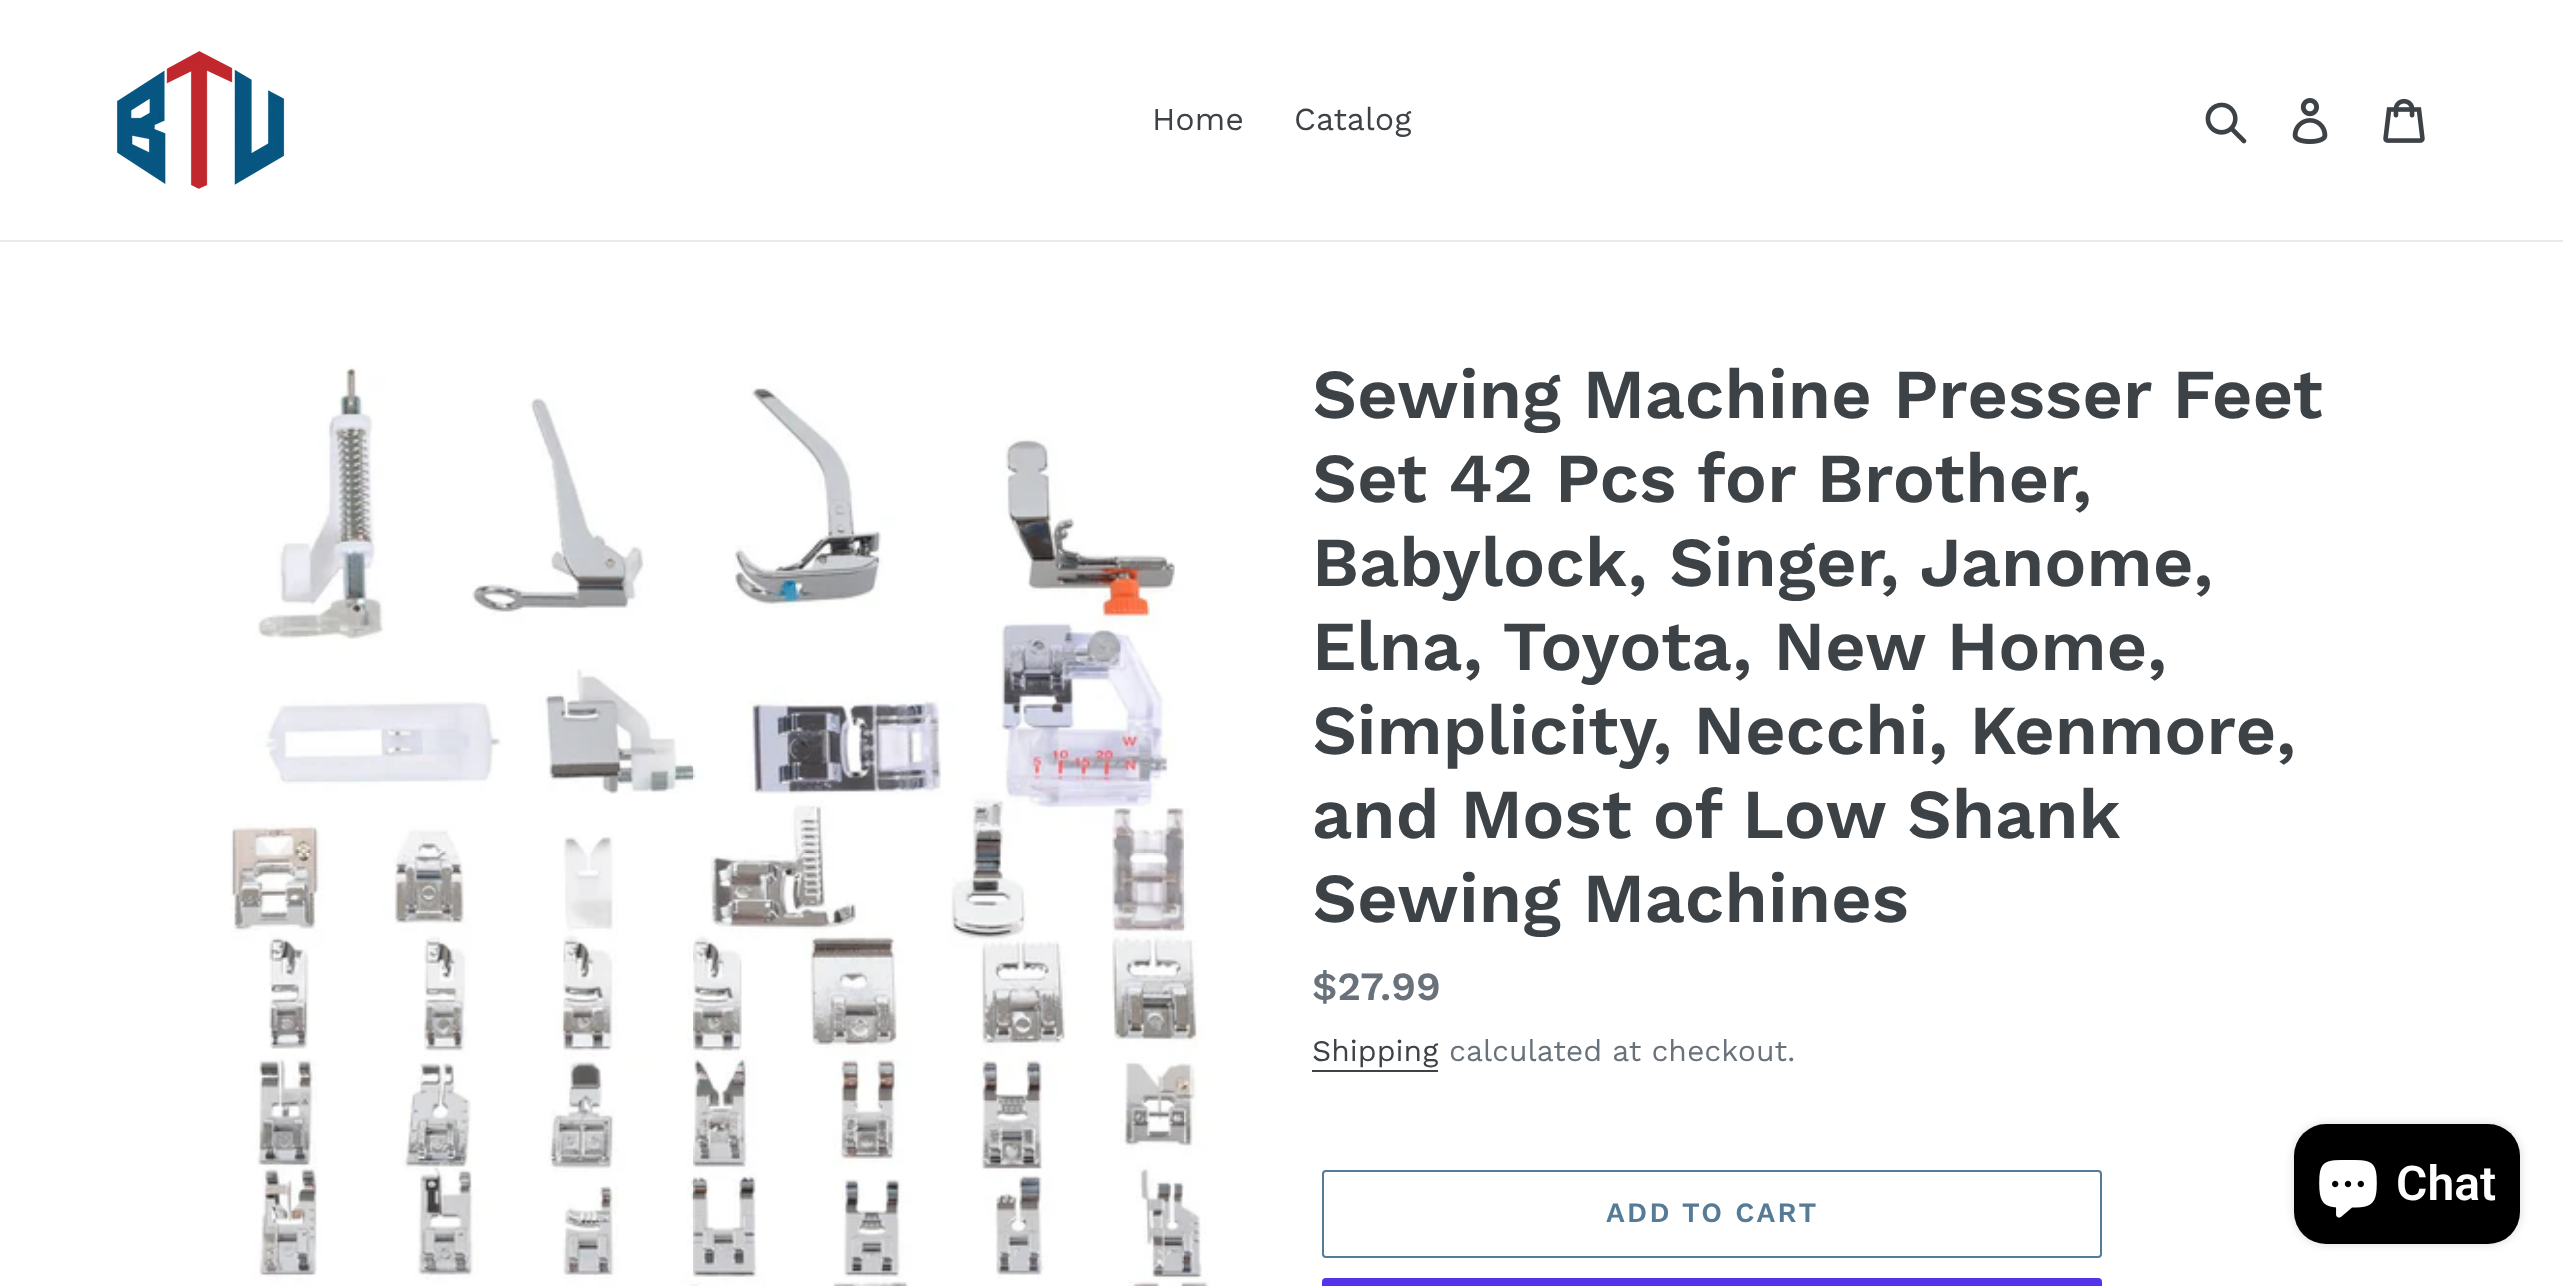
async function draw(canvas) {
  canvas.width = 2563;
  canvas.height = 1286;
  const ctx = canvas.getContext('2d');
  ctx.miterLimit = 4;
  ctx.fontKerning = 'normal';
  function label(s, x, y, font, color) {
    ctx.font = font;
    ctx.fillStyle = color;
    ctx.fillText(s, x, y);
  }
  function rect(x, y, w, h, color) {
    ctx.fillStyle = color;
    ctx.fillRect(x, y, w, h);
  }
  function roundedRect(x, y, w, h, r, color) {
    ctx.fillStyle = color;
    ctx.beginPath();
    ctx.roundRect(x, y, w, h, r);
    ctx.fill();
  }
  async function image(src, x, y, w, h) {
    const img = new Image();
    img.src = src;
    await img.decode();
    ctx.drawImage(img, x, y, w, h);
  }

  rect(0, 0, 2563, 1286, '#fff');
  rect(0, 240, 2563, 2, '#e8e9eb');
  await image('assets/img1.png', 116, 51, 169, 138);
  label('Home', 1152, 130, '32px Work Sans', '#3d4246');
  label('Catalog', 1294, 130, '32px Work Sans', '#3d4246');
  await image('assets/img2.png', 2205, 102, 42, 42);
  await image('assets/img3.png', 2292, 98, 36, 46);
  await image('assets/img4.png', 2383, 98, 42, 45);
  await image('assets/img5.png', 230, 367, 980, 919);
  label('Sewing Machine Presser Feet', 1312, 418, '600 70px Work Sans', '#3d4246');
  label('Set 42 Pcs for Brother,', 1312, 502, '600 70px Work Sans', '#3d4246');
  label('Babylock, Singer, Janome,', 1312, 586, '600 70px Work Sans', '#3d4246');
  label('Elna, Toyota, New Home,', 1312, 670, '600 70px Work Sans', '#3d4246');
  label('Simplicity, Necchi, Kenmore,', 1312, 754, '600 70px Work Sans', '#3d4246');
  ctx.wordSpacing = '-0.5px';
  label('and Most of Low Shank', 1312, 838, '600 70px Work Sans', '#3d4246');
  ctx.wordSpacing = '0px';
  label('Sewing Machines', 1312, 922, '600 70px Work Sans', '#3d4246');
  label('$27.99', 1312, 1000, '600 40px Work Sans', '#69727b');
  label('Shipping', 1312, 1061, '30px Work Sans', '#3d4246');
  rect(1312, 1070, 126, 2, '#3d4246');
  label('calculated at checkout.', 1449, 1061, '30px Work Sans', '#69727b');
  ctx.beginPath();
  ctx.roundRect(1323, 1171, 778, 86, 3);
  ctx.strokeStyle = '#557b97';
  ctx.lineWidth = 2;
  ctx.stroke();
  ctx.letterSpacing = '2.25px';
  label('ADD TO CART', 1606, 1222, '600 28px Work Sans', '#557b97');
  roundedRect(1322, 1278, 780, 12, 4, '#5433eb');
  ctx.fillStyle = '#00000026';
  ctx.filter = 'blur(5px)';
  ctx.beginPath();
  ctx.roundRect(2294, 1124, 226, 120, 32);
  ctx.fill();
  ctx.filter = 'none';
  roundedRect(2294, 1124, 226, 120, 32, '#000');
  await image('assets/img6.png', 2319, 1160, 58, 58);
  ctx.letterSpacing = '0px';
  label('Chat', 2396, 1200, '600 48px Roboto', '#fff');
}

draw(document.querySelector('canvas'));
